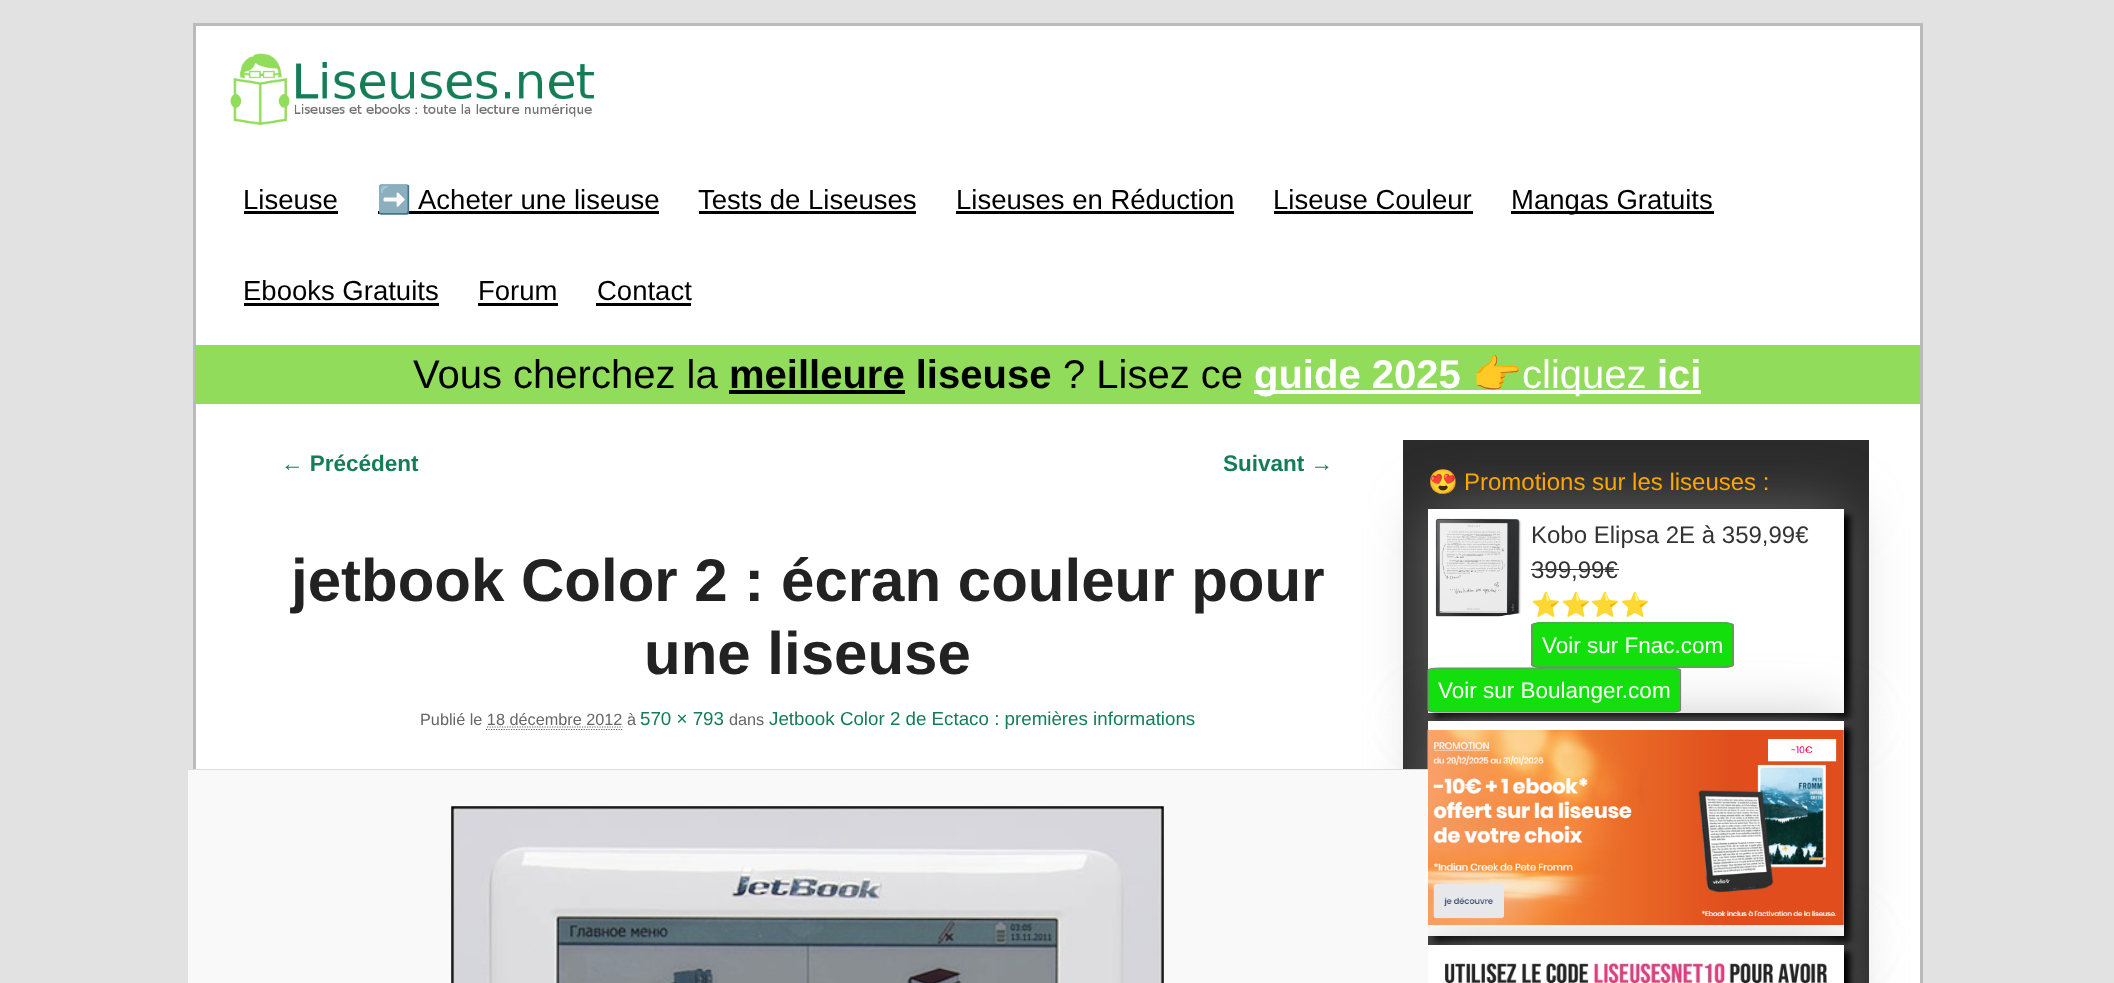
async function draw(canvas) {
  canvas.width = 2114;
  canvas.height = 983;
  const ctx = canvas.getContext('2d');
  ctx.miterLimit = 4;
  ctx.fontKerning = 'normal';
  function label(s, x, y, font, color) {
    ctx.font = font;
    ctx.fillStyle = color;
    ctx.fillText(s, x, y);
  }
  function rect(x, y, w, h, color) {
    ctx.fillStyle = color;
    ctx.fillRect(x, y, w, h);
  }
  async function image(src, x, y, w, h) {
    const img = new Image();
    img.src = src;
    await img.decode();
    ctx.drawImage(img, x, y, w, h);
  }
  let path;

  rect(0, 0, 2114, 983, '#e2e2e2');
  ctx.fillStyle = '#fff';
  ctx.beginPath();
  ctx.rect(194.5, 24.5, 1727, 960);
  ctx.fill();
  ctx.strokeStyle = '#bbb';
  ctx.lineWidth = 3;
  ctx.stroke();
  await image('assets/img1.png', 230, 53, 364, 72);
  label('Liseuse', 243, 209, '27.5px Liberation Sans', '#000');
  rect(244, 211, 94, 3, '#000');
  rect(378, 211, 281, 3, '#000');
  label('➡️', 377, 209, '27.5px Noto Color Emoji', '#000');
  label('Acheter une liseuse', 418, 209, '27.5px Liberation Sans', '#000');
  label('Tests de Liseuses', 698, 209, '27.5px Liberation Sans', '#000');
  rect(699, 211, 217, 3, '#000');
  label('Liseuses en Réduction', 956, 209, '27.5px Liberation Sans', '#000');
  rect(956, 211, 278, 3, '#000');
  label('Liseuse Couleur', 1273, 209, '27.5px Liberation Sans', '#000');
  rect(1274, 211, 199, 3, '#000');
  rect(1511, 211, 203, 3, '#000');
  label('Mangas Gratuits', 1511, 209, '27.5px Liberation Sans', '#000');
  label('Ebooks Gratuits', 243, 300, '27.5px Liberation Sans', '#000');
  rect(244, 303, 195, 3, '#000');
  label('Forum', 478, 300, '27.5px Liberation Sans', '#000');
  rect(478, 303, 80, 3, '#000');
  label('Contact', 597, 300, '27.5px Liberation Sans', '#000');
  rect(596, 303, 95, 3, '#000');
  rect(195, 345, 1725, 59, '#91dc5a');
  label('Vous cherchez la', 413, 388, '40px Liberation Sans', '#000');
  label('meilleure liseuse', 729, 388, 'bold 40px Liberation Sans', '#000');
  rect(729, 390, 176, 4, '#000');
  label('? Lisez ce', 1063, 388, '40px Liberation Sans', '#000');
  rect(1254, 390, 447, 4, '#fafafa');
  label('guide 2025', 1254, 388, 'bold 40px Liberation Sans', '#fff');
  label('👉', 1472, 388, '40px Noto Color Emoji', '#fff');
  label('cliquez', 1522, 388, '40px Liberation Sans', '#fff');
  label('ici', 1657, 388, 'bold 40px Liberation Sans', '#fff');
  label('← Précédent', 281, 471, 'bold 22.5px Liberation Sans', '#147d55');
  label('Suivant →', 1223, 471, 'bold 22.5px Liberation Sans', '#147d55');
  label('jetbook Color 2 : écran couleur pour', 291, 601, 'bold 60px Liberation Sans', '#222');
  label('une liseuse', 644, 674, 'bold 60px Liberation Sans', '#222');
  label('Publié le 18 décembre 2012 à', 420, 725, '16.25px Liberation Sans', '#666');
  label('570 × 793', 640, 725, '18.75px Liberation Sans', '#147d55');
  label('dans', 729, 725, '16.25px Liberation Sans', '#666');
  label('Jetbook Color 2 de Ectaco : premières informations', 769, 725, '18.75px Liberation Sans', '#147d55');
  path = new Path2D('M487 727H622.5');
  ctx.strokeStyle = '#666';
  ctx.lineWidth = 1.2;
  ctx.setLineDash([1.25, 1.25]);
  ctx.stroke(path);
  path = new Path2D('M486 729.5H622.5');
  ctx.stroke(path);
  rect(1403, 440, 466, 543, '#2b2b2b');
  ctx.fillStyle = '#8f8f8f91';
  ctx.filter = 'blur(29.5px)';
  ctx.beginPath();
  ctx.rect(1428, 509, 416, 204);
  ctx.fill();
  ctx.filter = 'none';
  ctx.fillStyle = '#000';
  ctx.filter = 'blur(3px)';
  ctx.beginPath();
  ctx.rect(1434, 515, 416, 204);
  ctx.fill();
  ctx.filter = 'none';
  rect(1428, 509, 416, 204, '#fff');
  ctx.fillStyle = '#8f8f8f91';
  ctx.filter = 'blur(29.5px)';
  ctx.beginPath();
  ctx.rect(1428, 721, 416, 215);
  ctx.fill();
  ctx.filter = 'none';
  ctx.fillStyle = '#000';
  ctx.filter = 'blur(3px)';
  ctx.beginPath();
  ctx.rect(1434, 728, 416, 215);
  ctx.fill();
  ctx.filter = 'none';
  rect(1428, 721, 416, 215, '#fff');
  ctx.fillStyle = '#8f8f8f91';
  ctx.filter = 'blur(29.5px)';
  ctx.beginPath();
  ctx.rect(1428, 945, 416, 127);
  ctx.fill();
  ctx.filter = 'none';
  await image('assets/img4.png', 1427, 730, 417, 195);
  ctx.fillStyle = '#000';
  ctx.filter = 'blur(3px)';
  ctx.beginPath();
  ctx.rect(1434, 951, 416, 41);
  ctx.fill();
  ctx.filter = 'none';
  rect(188, 770, 1240, 213, '#f9f9f9');
  rect(188, 769, 1240, 1, '#ddd');
  await image('assets/img2.png', 451, 806, 713, 177);
  label('😍', 1428, 490, '24px Noto Color Emoji', '#ffa500');
  label('Promotions sur les liseuses :', 1464, 490, '24px Liberation Sans', '#ffa500');
  await image('assets/img3.png', 1435, 518, 87, 99);
  label('Kobo Elipsa 2E à 359,99€', 1531, 543, '24px Liberation Sans', '#333');
  label('399,99€', 1531, 578, '24px Liberation Sans', '#333');
  rect(1531, 569, 88, 1, '#333');
  label('⭐⭐⭐⭐', 1531, 613, '24px Noto Color Emoji', '#333');
  ctx.fillStyle = '#13df0c';
  path = new Path2D('M1541 622H1724C1729 622 1734 624 1734 625V665C1734 666 1729 668 1724 668H1541C1536 668 1531 666 1531 665V625C1531 624 1536 622 1541 622Z');
  ctx.fill(path);
  path = new Path2D('M1541.5 623H1723.5C1729 623 1733 624 1733 625V665C1733 666 1729 667 1723.5 667H1541.5C1536 667 1532 666 1532 665V625C1532 624 1536 623 1541.5 623Z');
  ctx.strokeStyle = '#808080';
  ctx.setLineDash([]);
  ctx.stroke(path);
  label('Voir sur Fnac.com', 1542, 653, '22.5px Liberation Sans', '#fff');
  ctx.fillStyle = '#13df0c';
  path = new Path2D('M1440 668H1669C1676 668 1681 669 1681 670V710C1681 711 1676 712 1669 712H1440C1433 712 1428 711 1428 710V670C1428 669 1433 668 1440 668Z');
  ctx.fill(path);
  path = new Path2D('M1440 668H1668.5C1675 668 1680.5 669 1680.5 670V710C1680.5 711 1675 712 1668.5 712H1440C1433.5 712 1428 711 1428 710V670C1428 669 1433.5 668 1440 668Z');
  ctx.stroke(path);
  label('Voir sur Boulanger.com', 1438, 698, '22.5px Liberation Sans', '#fff');
  rect(1428, 945, 416, 38, '#fff');
  await image('assets/img5.png', 1428, 953, 400, 30);
}

draw(document.querySelector('canvas'));
